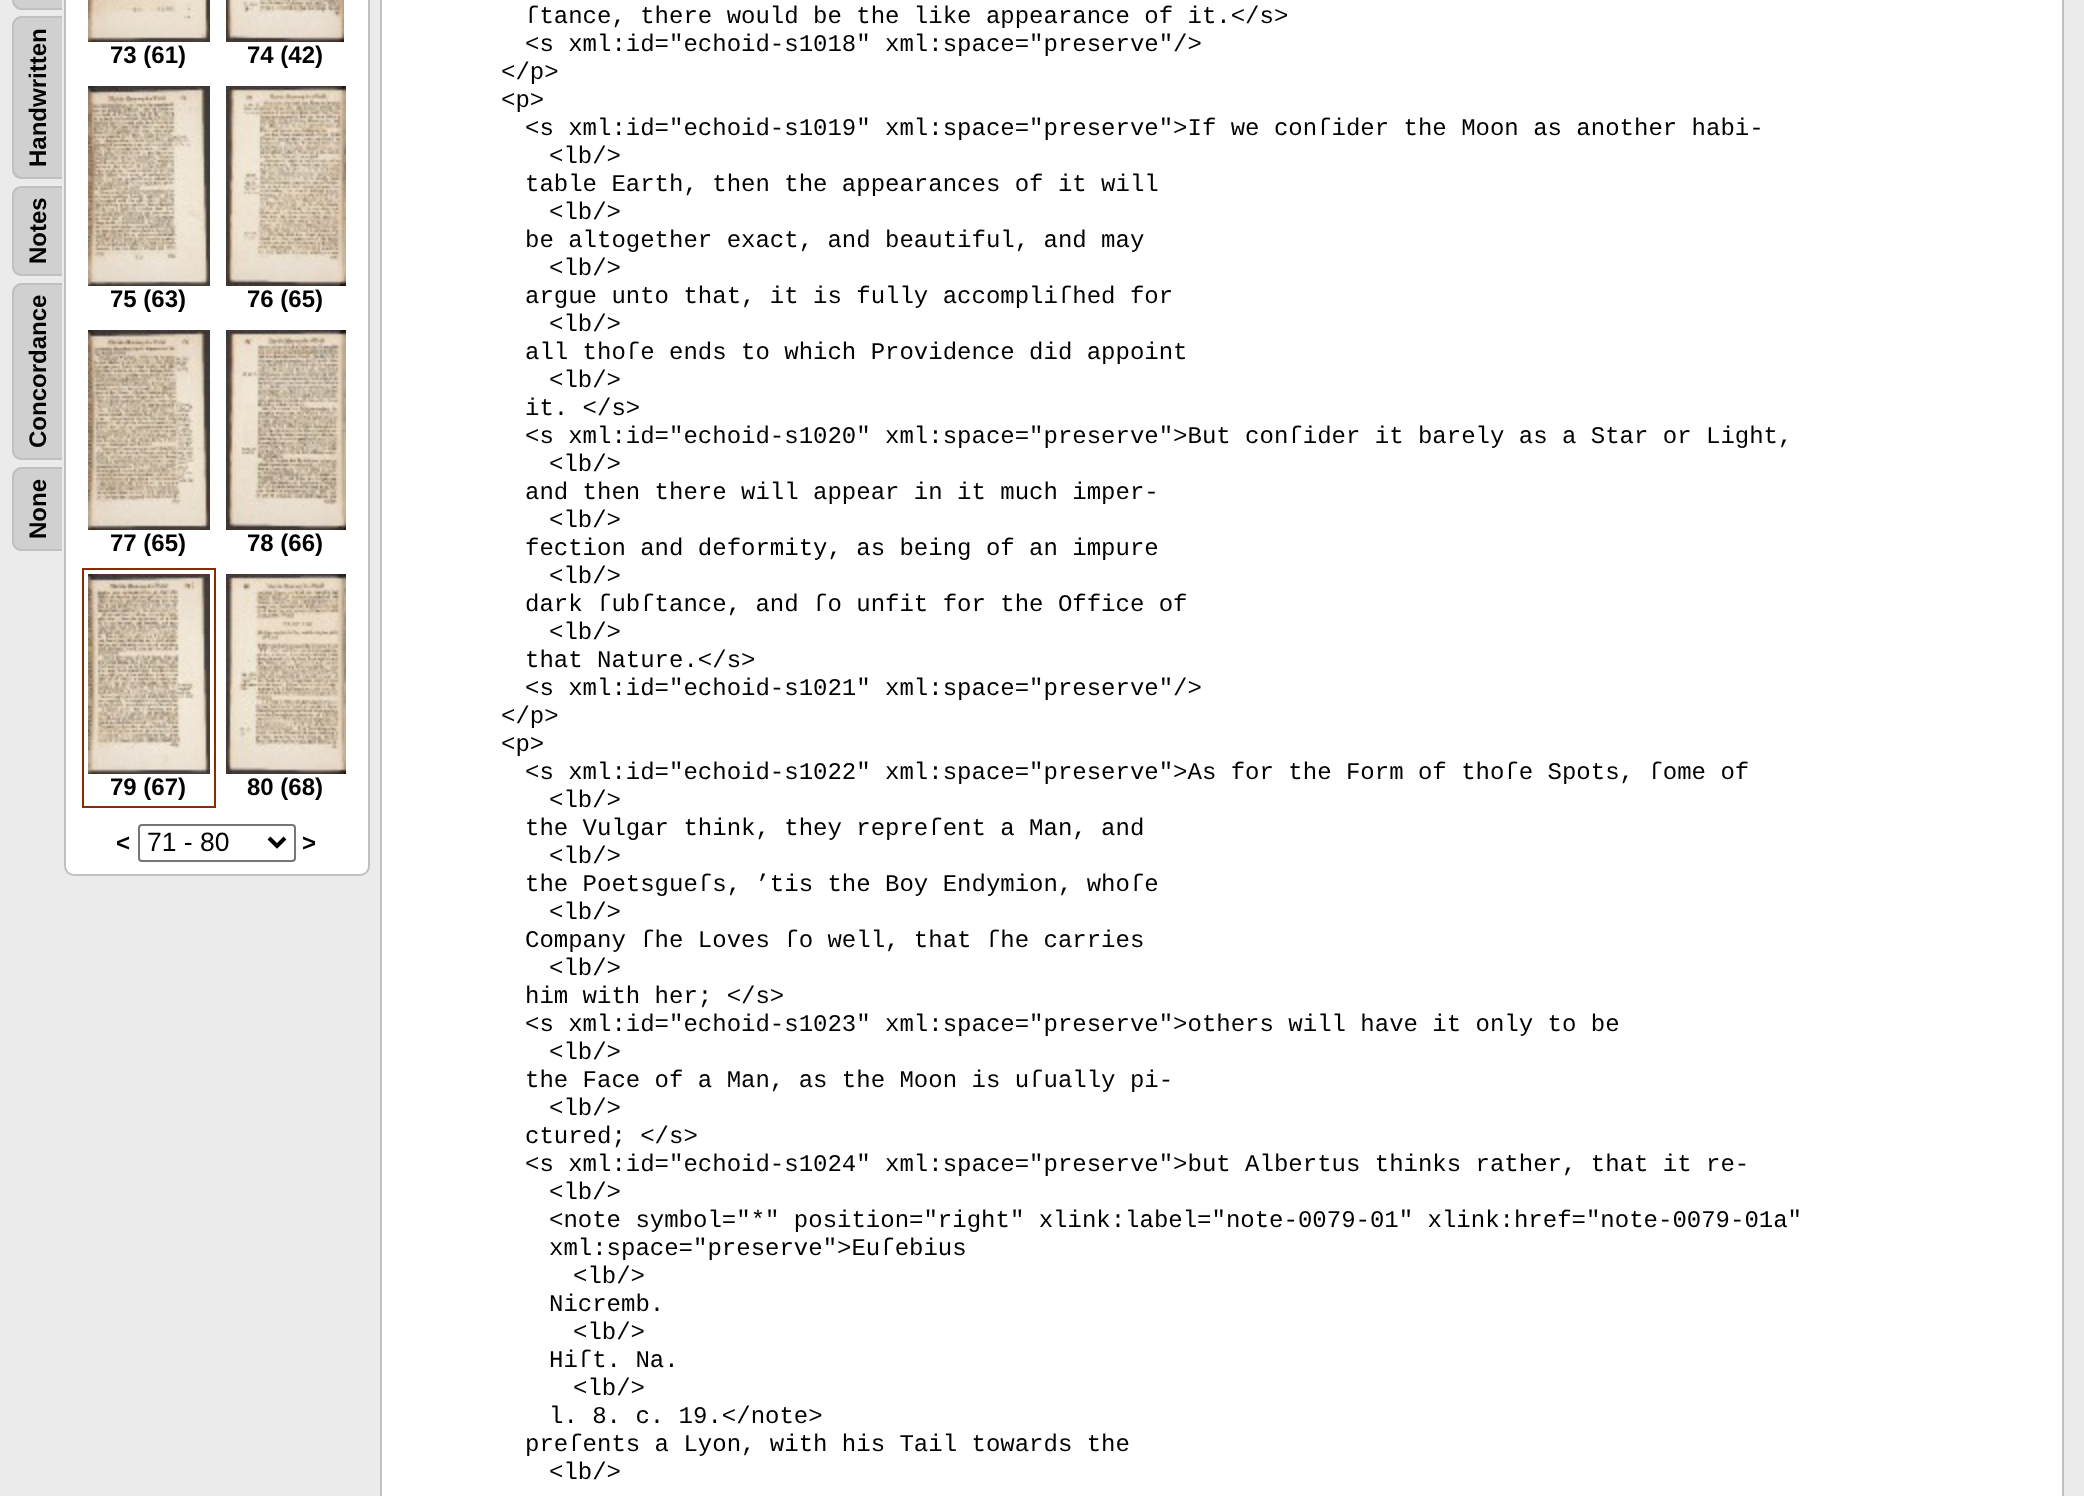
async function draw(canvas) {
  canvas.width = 2084;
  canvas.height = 1496;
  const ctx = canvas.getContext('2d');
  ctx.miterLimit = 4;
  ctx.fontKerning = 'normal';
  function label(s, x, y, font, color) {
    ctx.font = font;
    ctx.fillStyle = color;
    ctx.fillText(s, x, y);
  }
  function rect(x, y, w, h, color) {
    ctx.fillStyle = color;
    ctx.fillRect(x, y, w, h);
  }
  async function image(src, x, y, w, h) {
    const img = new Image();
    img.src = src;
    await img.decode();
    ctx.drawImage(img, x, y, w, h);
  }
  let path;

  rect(0, 0, 2084, 1496, '#ebebeb');
  ctx.fillStyle = '#d0d0d0';
  path = new Path2D('M12 0V-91C12-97 16-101 22-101H62V10H22C16 10 12 5 12 0Z');
  ctx.fill(path);
  ctx.fillStyle = '#c0c0c0';
  path = new Path2D('M12 0V-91C12-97 16-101 22-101H62V10H22C16 10 12 5 12 0ZM14 0V-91C14-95 18-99 22-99H62V8H22C18 8 14 4 14 0Z');
  ctx.fill(path, 'evenodd');
  ctx.fillStyle = '#d0d0d0';
  path = new Path2D('M12 169V26C12 21 16 16 22 16H62V179H22C16 179 12 175 12 169Z');
  ctx.fill(path);
  ctx.fillStyle = '#c0c0c0';
  path = new Path2D('M12 169V26C12 21 16 16 22 16H62V179H22C16 179 12 175 12 169ZM14 169V26C14 22 18 18 22 18H62V177H22C18 177 14 173 14 169Z');
  ctx.fill(path, 'evenodd');
  ctx.font = 'bold 24px Liberation Sans';
  ctx.fillStyle = '#000';
  ctx.save();
  ctx.translate(46, 167);
  ctx.rotate(-90 * Math.PI / 180);
  ctx.fillText('Handwritten', 0, 0);
  ctx.restore();
  ctx.fillStyle = '#d0d0d0';
  path = new Path2D('M12 266V196C12 190 16 186 22 186H62V276H22C16 276 12 272 12 266Z');
  ctx.fill(path);
  ctx.fillStyle = '#c0c0c0';
  path = new Path2D('M12 266V196C12 190 16 186 22 186H62V276H22C16 276 12 272 12 266ZM14 266V196C14 191 18 188 22 188H62V274H22C18 274 14 271 14 266Z');
  ctx.fill(path, 'evenodd');
  ctx.fillStyle = '#000';
  ctx.save();
  ctx.translate(46, 264);
  ctx.rotate(-90 * Math.PI / 180);
  ctx.fillText('Notes', 0, 0);
  ctx.restore();
  ctx.fillStyle = '#d0d0d0';
  path = new Path2D('M12 450V293C12 288 16 283 22 283H62V460H22C16 460 12 456 12 450Z');
  ctx.fill(path);
  ctx.fillStyle = '#c0c0c0';
  path = new Path2D('M12 450V293C12 288 16 283 22 283H62V460H22C16 460 12 456 12 450ZM14 450V293C14 289 18 285 22 285H62V458H22C18 458 14 455 14 450Z');
  ctx.fill(path, 'evenodd');
  ctx.fillStyle = '#000';
  ctx.save();
  ctx.translate(46, 448);
  ctx.rotate(-90 * Math.PI / 180);
  ctx.fillText('Concordance', 0, 0);
  ctx.restore();
  ctx.fillStyle = '#d0d0d0';
  path = new Path2D('M12 541V477C12 472 16 467 22 467H62V551H22C16 551 12 547 12 541Z');
  ctx.fill(path);
  ctx.fillStyle = '#c0c0c0';
  path = new Path2D('M12 541V477C12 472 16 467 22 467H62V551H22C16 551 12 547 12 541ZM14 541V477C14 473 18 469 22 469H62V549H22C18 549 14 546 14 541Z');
  ctx.fill(path, 'evenodd');
  ctx.fillStyle = '#000';
  ctx.save();
  ctx.translate(46, 539);
  ctx.rotate(-90 * Math.PI / 180);
  ctx.fillText('None', 0, 0);
  ctx.restore();
  ctx.fillStyle = '#fff';
  ctx.beginPath();
  ctx.roundRect(65, -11, 304, 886, 9);
  ctx.fill();
  ctx.strokeStyle = '#c0c0c0';
  ctx.lineWidth = 2;
  ctx.stroke();
  await image('assets/img1.png', 88, 0, 122, 42);
  label('73 (61)', 110, 63, 'bold 24px Liberation Sans', '#000');
  await image('assets/img2.png', 226, 0, 118, 42);
  label('74 (42)', 247, 63, 'bold 24px Liberation Sans', '#000');
  await image('assets/img3.png', 88, 86, 122, 200);
  label('75 (63)', 110, 307, 'bold 24px Liberation Sans', '#000');
  await image('assets/img4.png', 226, 86, 120, 200);
  label('76 (65)', 247, 307, 'bold 24px Liberation Sans', '#000');
  await image('assets/img5.png', 88, 330, 122, 200);
  label('77 (65)', 110, 551, 'bold 24px Liberation Sans', '#000');
  await image('assets/img6.png', 226, 330, 120, 200);
  label('78 (66)', 247, 551, 'bold 24px Liberation Sans', '#000');
  ctx.strokeStyle = '#892b06';
  ctx.strokeRect(83, 569, 132, 238);
  await image('assets/img7.png', 88, 574, 122, 200);
  label('79 (67)', 110, 795, 'bold 24px Liberation Sans', '#000');
  await image('assets/img8.png', 226, 574, 120, 200);
  label('80 (68)', 247, 795, 'bold 24px Liberation Sans', '#000');
  label('<', 116, 851, 'bold 24px Liberation Sans', '#000');
  ctx.beginPath();
  ctx.roundRect(139, 825, 156, 36, 3);
  ctx.strokeStyle = '#767676';
  ctx.stroke();
  path = new Path2D('M269 838L277 846L285 838');
  ctx.strokeStyle = '#000';
  ctx.lineWidth = 4;
  ctx.stroke(path);
  label('71 - 80', 147, 851, '26.5px Liberation Sans', '#000');
  label('>', 302, 851, 'bold 24px Liberation Sans', '#000');
  ctx.fillStyle = '#fff';
  ctx.beginPath();
  ctx.rect(381, -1, 1682, 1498);
  ctx.fill();
  ctx.strokeStyle = '#c0c0c0';
  ctx.lineWidth = 2;
  ctx.stroke();
  label('ſtance, there would be the like appearance of it.<\/s>', 525, 23, '24px Liberation Mono', '#000');
  label('<s xml:id="echoid-s1018" xml:space="preserve"/>', 525, 51, '24px Liberation Mono', '#000');
  label('<\/p>', 501, 79, '24px Liberation Mono', '#000');
  label('<p>', 501, 107, '24px Liberation Mono', '#000');
  label('<s xml:id="echoid-s1019" xml:space="preserve">If we conſider the Moon as another habi-', 525, 135, '24px Liberation Mono', '#000');
  label('<lb/>', 549, 163, '24px Liberation Mono', '#000');
  label('table Earth, then the appearances of it will', 525, 191, '24px Liberation Mono', '#000');
  label('<lb/>', 549, 219, '24px Liberation Mono', '#000');
  label('be altogether exact, and beautiful, and may', 525, 247, '24px Liberation Mono', '#000');
  label('<lb/>', 549, 275, '24px Liberation Mono', '#000');
  label('argue unto that, it is fully accompliſhed for', 525, 303, '24px Liberation Mono', '#000');
  label('<lb/>', 549, 331, '24px Liberation Mono', '#000');
  label('all thoſe ends to which Providence did appoint', 525, 359, '24px Liberation Mono', '#000');
  label('<lb/>', 549, 387, '24px Liberation Mono', '#000');
  label('it. <\/s>', 525, 415, '24px Liberation Mono', '#000');
  label('<s xml:id="echoid-s1020" xml:space="preserve">But conſider it barely as a Star or Light,', 525, 443, '24px Liberation Mono', '#000');
  label('<lb/>', 549, 471, '24px Liberation Mono', '#000');
  label('and then there will appear in it much imper-', 525, 499, '24px Liberation Mono', '#000');
  label('<lb/>', 549, 527, '24px Liberation Mono', '#000');
  label('fection and deformity, as being of an impure', 525, 555, '24px Liberation Mono', '#000');
  label('<lb/>', 549, 583, '24px Liberation Mono', '#000');
  label('dark ſubſtance, and ſo unfit for the Office of', 525, 611, '24px Liberation Mono', '#000');
  label('<lb/>', 549, 639, '24px Liberation Mono', '#000');
  label('that Nature.<\/s>', 525, 667, '24px Liberation Mono', '#000');
  label('<s xml:id="echoid-s1021" xml:space="preserve"/>', 525, 695, '24px Liberation Mono', '#000');
  label('<\/p>', 501, 723, '24px Liberation Mono', '#000');
  label('<p>', 501, 751, '24px Liberation Mono', '#000');
  label('<s xml:id="echoid-s1022" xml:space="preserve">As for the Form of thoſe Spots, ſome of', 525, 779, '24px Liberation Mono', '#000');
  label('<lb/>', 549, 807, '24px Liberation Mono', '#000');
  label('the Vulgar think, they repreſent a Man, and', 525, 835, '24px Liberation Mono', '#000');
  label('<lb/>', 549, 863, '24px Liberation Mono', '#000');
  label('the Poetsgueſs, ’tis the Boy Endymion, whoſe', 525, 891, '24px Liberation Mono', '#000');
  label('<lb/>', 549, 919, '24px Liberation Mono', '#000');
  label('Company ſhe Loves ſo well, that ſhe carries', 525, 947, '24px Liberation Mono', '#000');
  label('<lb/>', 549, 975, '24px Liberation Mono', '#000');
  label('him with her; <\/s>', 525, 1003, '24px Liberation Mono', '#000');
  label('<s xml:id="echoid-s1023" xml:space="preserve">others will have it only to be', 525, 1031, '24px Liberation Mono', '#000');
  label('<lb/>', 549, 1059, '24px Liberation Mono', '#000');
  label('the Face of a Man, as the Moon is uſually pi-', 525, 1087, '24px Liberation Mono', '#000');
  label('<lb/>', 549, 1115, '24px Liberation Mono', '#000');
  label('ctured; <\/s>', 525, 1143, '24px Liberation Mono', '#000');
  label('<s xml:id="echoid-s1024" xml:space="preserve">but Albertus thinks rather, that it re-', 525, 1171, '24px Liberation Mono', '#000');
  label('<lb/>', 549, 1199, '24px Liberation Mono', '#000');
  label('<note symbol="*" position="right" xlink:label="note-0079-01" xlink:href="note-0079-01a"', 549, 1227, '24px Liberation Mono', '#000');
  label('xml:space="preserve">Euſebius', 549, 1255, '24px Liberation Mono', '#000');
  label('<lb/>', 573, 1283, '24px Liberation Mono', '#000');
  label('Nicremb.', 549, 1311, '24px Liberation Mono', '#000');
  label('<lb/>', 573, 1339, '24px Liberation Mono', '#000');
  label('Hiſt. Na.', 549, 1367, '24px Liberation Mono', '#000');
  label('<lb/>', 573, 1395, '24px Liberation Mono', '#000');
  label('l. 8. c. 19.<\/note>', 549, 1423, '24px Liberation Mono', '#000');
  label('preſents a Lyon, with his Tail towards the', 525, 1451, '24px Liberation Mono', '#000');
  label('<lb/>', 549, 1479, '24px Liberation Mono', '#000');
}

draw(document.querySelector('canvas'));
